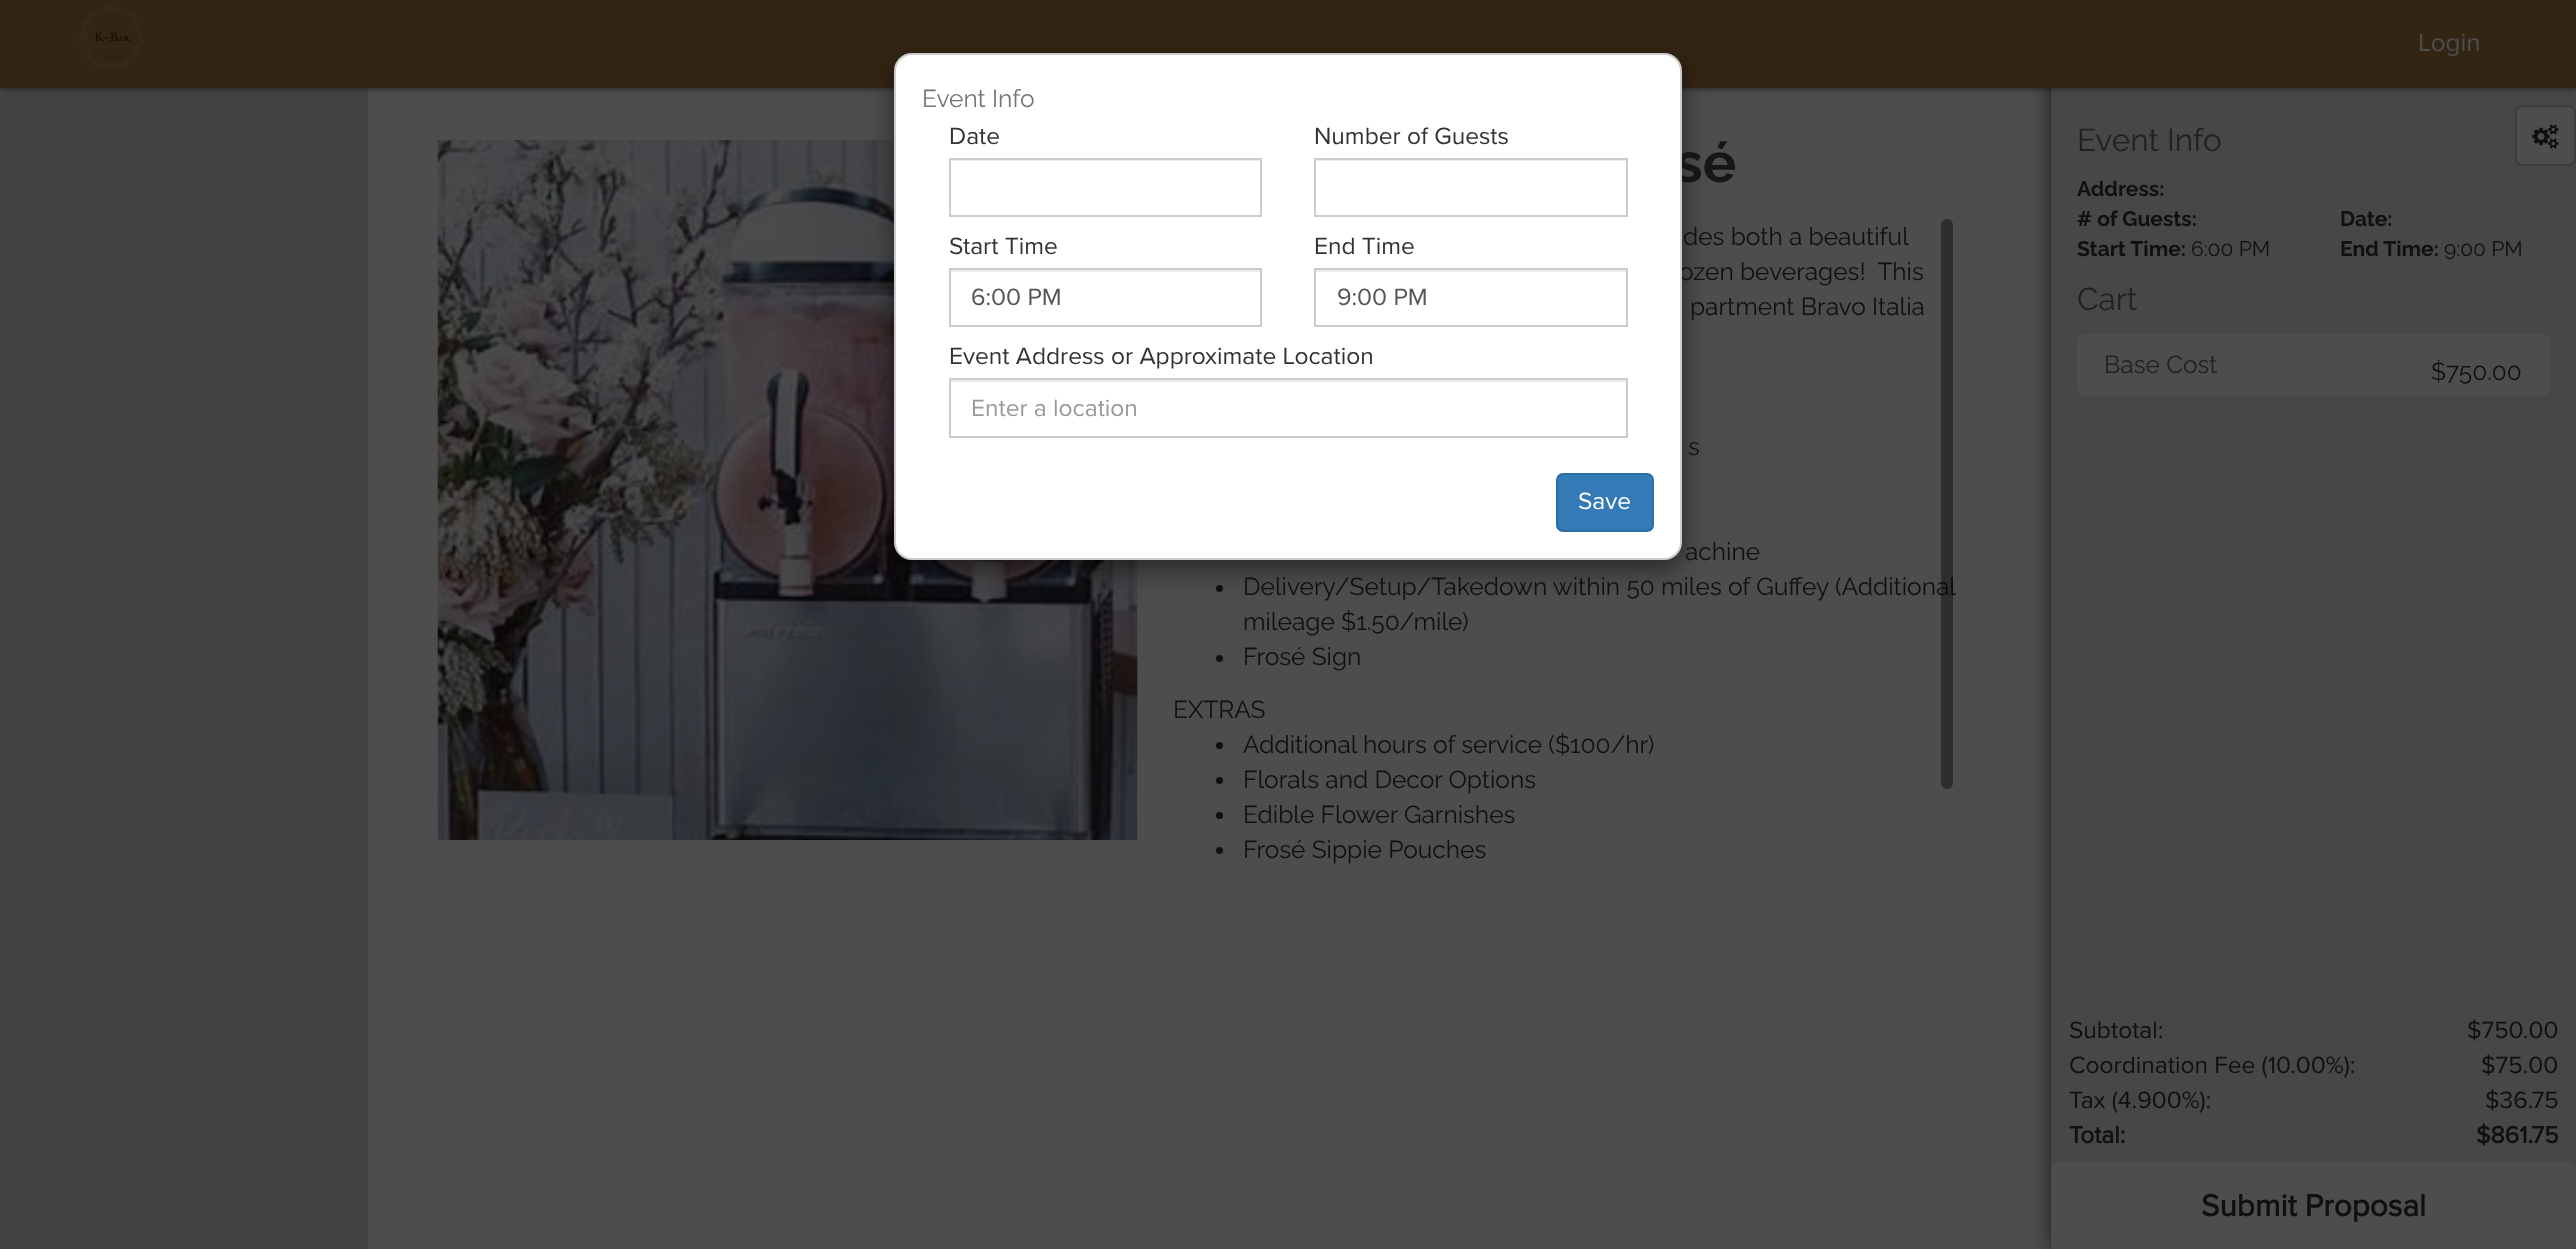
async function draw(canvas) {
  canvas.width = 2576;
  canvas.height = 1249;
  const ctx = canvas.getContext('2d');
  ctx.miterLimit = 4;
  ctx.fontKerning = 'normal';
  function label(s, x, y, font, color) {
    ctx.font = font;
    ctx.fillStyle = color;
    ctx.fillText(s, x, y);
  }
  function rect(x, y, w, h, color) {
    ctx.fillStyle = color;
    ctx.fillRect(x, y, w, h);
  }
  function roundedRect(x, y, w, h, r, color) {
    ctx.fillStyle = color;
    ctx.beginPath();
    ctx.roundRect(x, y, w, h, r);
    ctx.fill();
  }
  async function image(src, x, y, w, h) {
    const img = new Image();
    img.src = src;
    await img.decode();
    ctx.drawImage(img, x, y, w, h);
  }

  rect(0, 0, 2576, 1249, '#4d4d4d');
  ctx.fillStyle = '#000';
  ctx.filter = 'blur(11.5px)';
  ctx.beginPath();
  ctx.rect(2056, 51, 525, 1197);
  ctx.fill();
  ctx.filter = 'none';
  rect(2051, 88, 525, 1161, '#474747');
  rect(0, 88, 368, 1161, '#434343');
  ctx.fillStyle = '#000';
  ctx.filter = 'blur(4.5px)';
  ctx.beginPath();
  ctx.rect(0, -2, 2576, 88);
  ctx.fill();
  ctx.filter = 'none';
  rect(0, 0, 2576, 88, '#332514');
  await image('assets/img1.png', 79, 5, 65, 65);
  label('Login', 2418, 51, '26px Proxima Nova', '#4d4d4d');
  await image('assets/img3.png', 437, 140, 701, 700);
  ctx.fillStyle = '#101010';
  ctx.beginPath();
  ctx.arc(1219.5, 588.5, 3.5, 0, 2 * Math.PI);
  ctx.fill();
  ctx.fillStyle = '#00000080';
  ctx.filter = 'blur(13px)';
  ctx.beginPath();
  ctx.roundRect(894, 61, 788, 508, 18);
  ctx.fill();
  ctx.filter = 'none';
  label('sé', 1675, 182, 'bold 56px Raleway', '#161616');
  label('ozen beverages!  This', 1679, 280, '24.5px Raleway', '#101010');
  roundedRect(894, 53, 788, 507, 18, '#fff');
  ctx.beginPath();
  ctx.roundRect(895, 54, 786, 505, 17);
  ctx.strokeStyle = '#00000033';
  ctx.lineWidth = 2;
  ctx.stroke();
  label('Event Info', 922, 107, '24.5px Raleway', '#757575');
  label('Date', 949, 144, '24.5px Proxima Nova', '#333');
  rect(950, 160, 310, 1, '#ececec');
  ctx.strokeStyle = '#ccc';
  ctx.strokeRect(950, 159, 311, 57);
  label('Number of Guests', 1314, 144, '24.5px Proxima Nova', '#333');
  rect(1316, 160, 310, 1, '#ececec');
  ctx.strokeRect(1315, 159, 312, 57);
  label('Start Time', 949, 254, '24.5px Proxima Nova', '#333');
  rect(950, 270, 310, 2, '#ececec');
  ctx.strokeRect(950, 269, 311, 57);
  label('6:00 PM', 971, 305, '24.5px Proxima Nova', '#555');
  label('End Time', 1314, 254, '24.5px Proxima Nova', '#333');
  rect(1316, 270, 310, 2, '#ececec');
  ctx.strokeRect(1315, 269, 312, 57);
  label('9:00 PM', 1337, 305, '24.5px Proxima Nova', '#555');
  label('Event Address or Approximate Location', 949, 364, '24.5px Proxima Nova', '#333');
  rect(950, 380, 676, 2, '#ececec');
  ctx.strokeRect(950, 379, 677, 58);
  label('Enter a location', 971, 416, '24.5px Proxima Nova', '#999');
  ctx.fillStyle = '#337ab7';
  ctx.beginPath();
  ctx.roundRect(1557, 474, 96, 57, 6);
  ctx.fill();
  ctx.strokeStyle = '#2e6da4';
  ctx.stroke();
  label('Save', 1578, 509, '24.5px Proxima Nova', '#fff');
  label('Event Info', 2077, 151, '31.5px Raleway', '#212121');
  label('Address:', 2077, 196, 'bold 21px Raleway', '#101010');
  label('# of Guests:', 2077, 226, 'bold 21px Raleway', '#101010');
  label('Date:', 2340, 226, 'bold 21px Raleway', '#101010');
  label('Start Time:', 2077, 256, 'bold 21px Raleway', '#101010');
  label('6:00 PM', 2191, 256, '21px Raleway', '#101010');
  label('End Time:', 2340, 256, 'bold 21px Raleway', '#101010');
  label('9:00 PM', 2444, 256, '21px Raleway', '#101010');
  ctx.fillStyle = '#4d4d4d';
  ctx.beginPath();
  ctx.roundRect(2516, 106, 59, 59, 6);
  ctx.fill();
  ctx.strokeStyle = '#3d3d3d';
  ctx.stroke();
  await image('assets/img2.png', 2532, 124, 27, 25);
  label('Cart', 2077, 310, '31.5px Raleway', '#212121');
  roundedRect(2077, 334, 473, 62, 7, '#4d4d4d');
  label('Base Cost', 2104, 373, '24.5px Raleway', '#212121');
  label('$750.00', 2431, 380, '24.5px Raleway', '#101010');
  label('Subtotal:', 2069, 1038, '24.5px Proxima Nova', '#101010');
  label('$750.00', 2467, 1038, '24.5px Proxima Nova', '#101010');
  label('Coordination Fee (10.00%):', 2069, 1073, '24.5px Proxima Nova', '#101010');
  label('$75.00', 2481, 1073, '24.5px Proxima Nova', '#101010');
  label('Tax (4.900%):', 2069, 1108, '24.5px Proxima Nova', '#101010');
  label('$36.75', 2485, 1108, '24.5px Proxima Nova', '#101010');
  label('Total:', 2069, 1143, 'bold 24.5px Proxima Nova', '#101010');
  label('$861.75', 2476, 1143, 'bold 24.5px Proxima Nova', '#101010');
  roundedRect(2051, 1162, 525, 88, 7, '#4d4d4d');
  label('Submit Proposal', 2201, 1216, 'bold 31.5px Proxima Nova', '#101010');
  label('Delivery/Setup/Takedown within 50 miles of Guffey (Additional', 1243, 595, '24.5px Raleway', '#101010');
  roundedRect(1941, 219, 12, 570, 6, '#00000066');
  label('des both a beautiful', 1683, 245, '24.5px Raleway', '#101010');
  label('partment Bravo Italia', 1690, 315, '24.5px Raleway', '#101010');
  label('s', 1688, 455, '24.5px Raleway', '#101010');
  label('achine', 1685, 560, '24.5px Raleway', '#101010');
  label('mileage $1.50/mile)', 1243, 630, '24.5px Raleway', '#101010');
  ctx.beginPath();
  ctx.arc(1219.5, 658.5, 3.5, 0, 2 * Math.PI);
  ctx.fill();
  label('Frosé Sign', 1243, 665, '24.5px Raleway', '#101010');
  label('EXTRAS', 1173, 718, '24.5px Raleway', '#101010');
  ctx.beginPath();
  ctx.arc(1219.5, 745.5, 3.5, 0, 2 * Math.PI);
  ctx.fill();
  label('Additional hours of service ($100/hr)', 1243, 753, '24.5px Raleway', '#101010');
  ctx.beginPath();
  ctx.arc(1219.5, 780.5, 3.5, 0, 2 * Math.PI);
  ctx.fill();
  label('Florals and Decor Options', 1243, 788, '24.5px Raleway', '#101010');
  ctx.beginPath();
  ctx.arc(1219.5, 815.5, 3.5, 0, 2 * Math.PI);
  ctx.fill();
  label('Edible Flower Garnishes', 1243, 823, '24.5px Raleway', '#101010');
  ctx.beginPath();
  ctx.arc(1219.5, 850.5, 3.5, 0, 2 * Math.PI);
  ctx.fill();
  label('Frosé Sippie Pouches', 1243, 858, '24.5px Raleway', '#101010');
}

draw(document.querySelector('canvas'));
